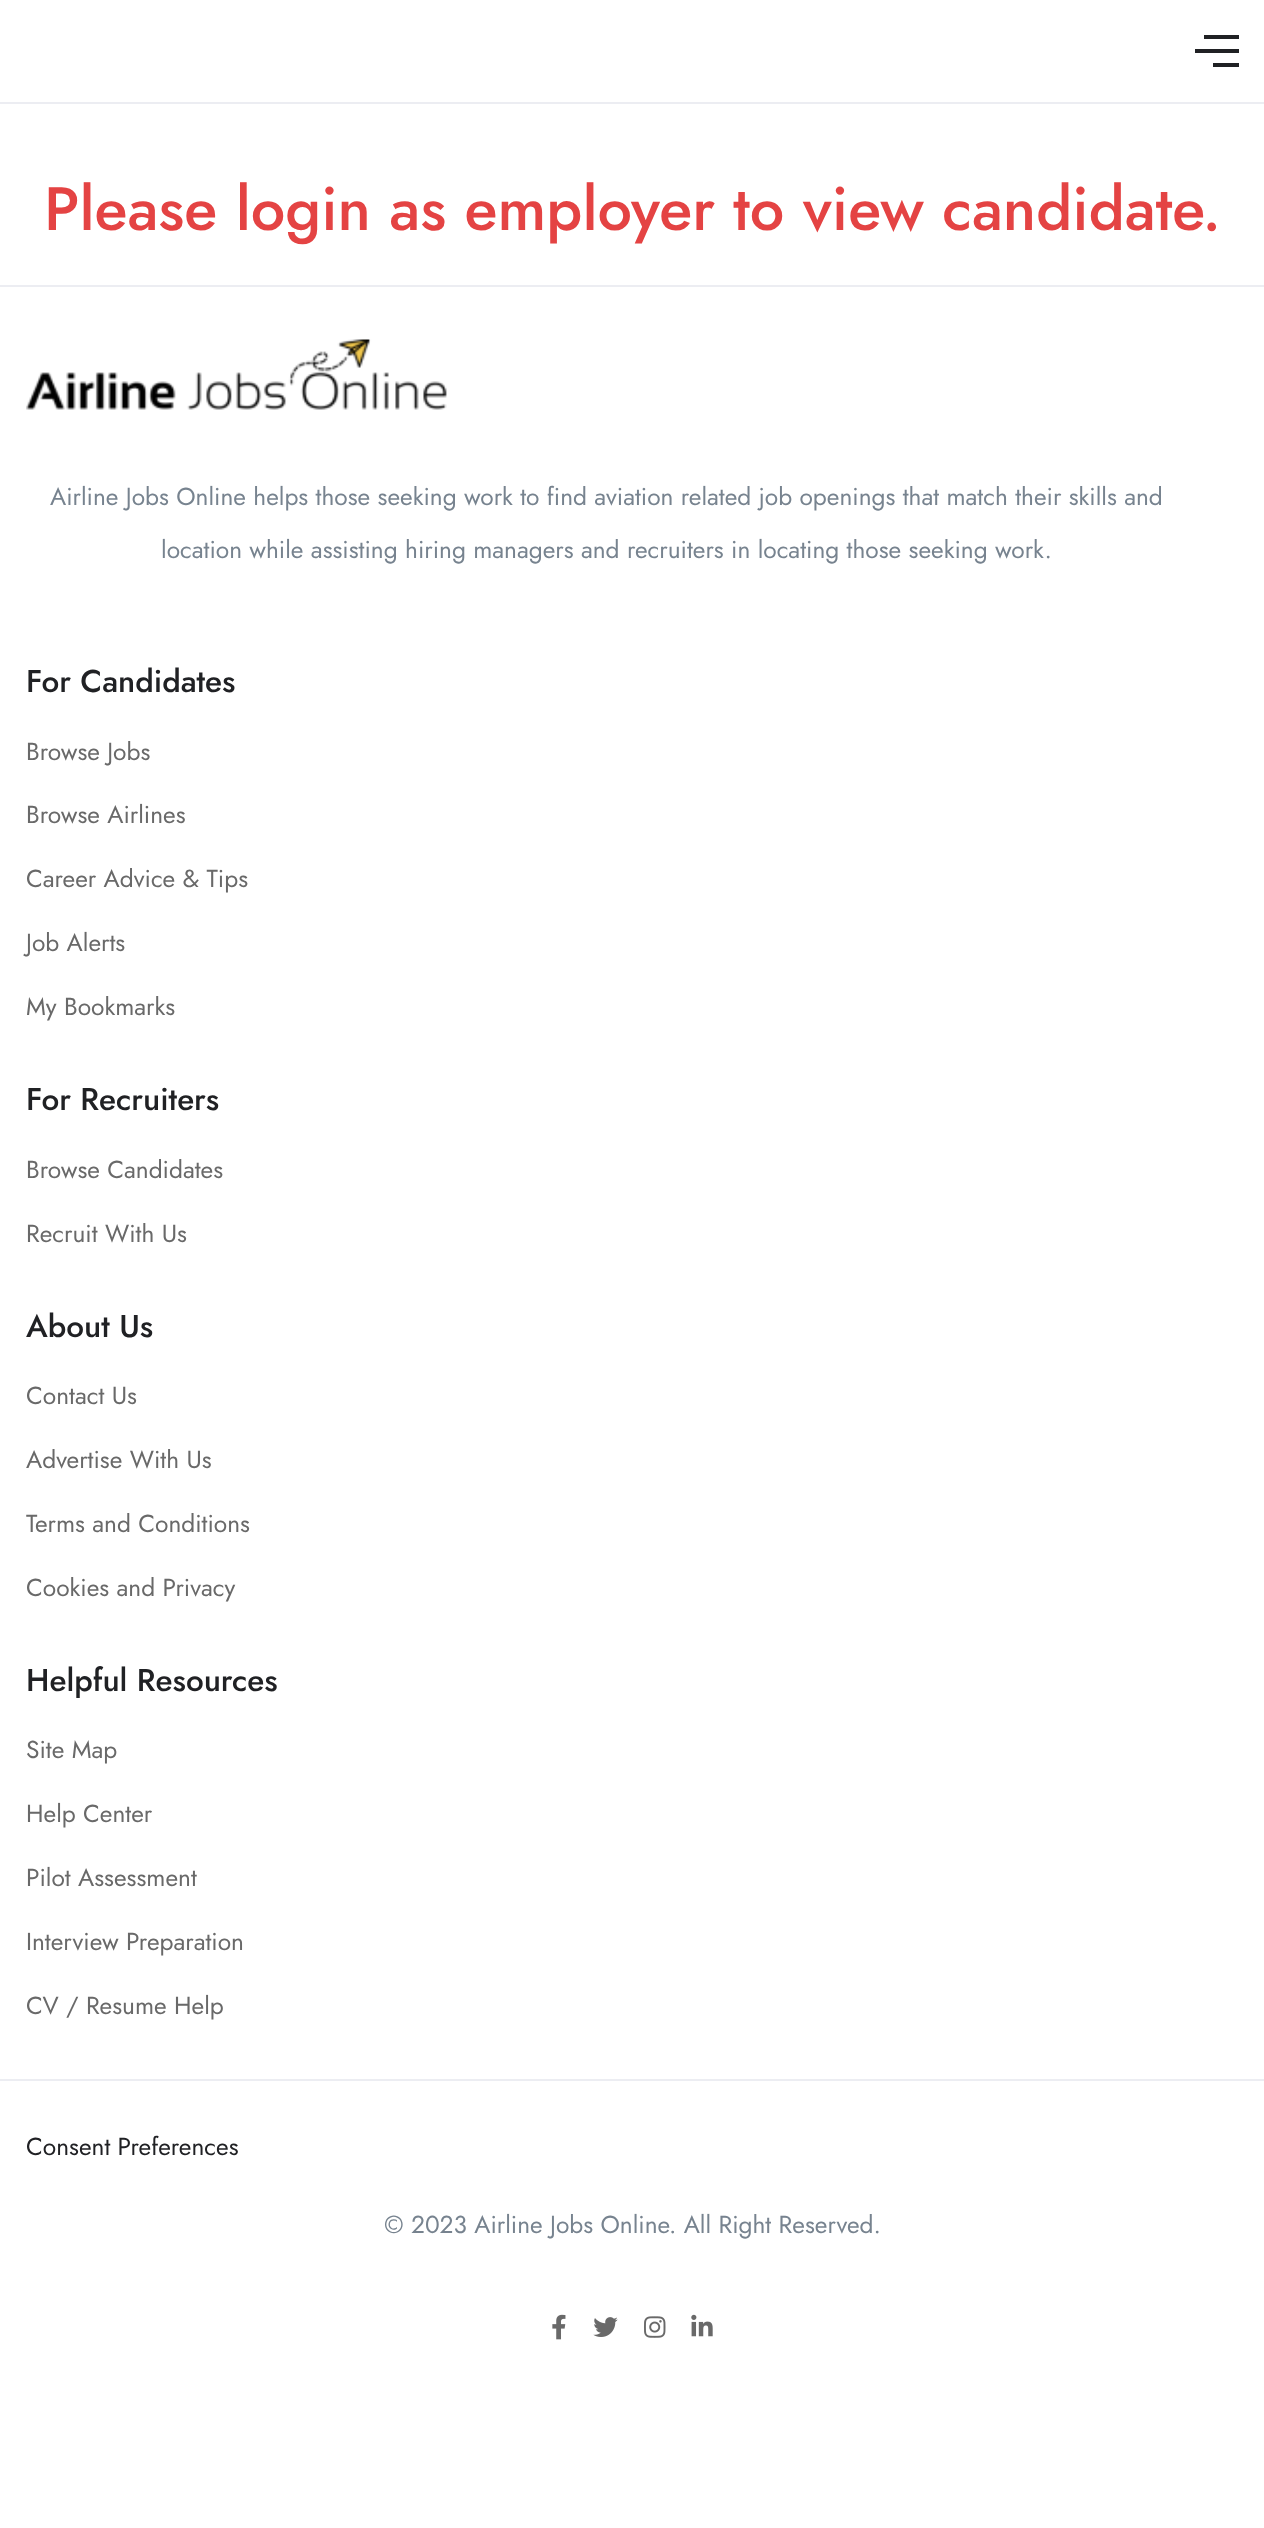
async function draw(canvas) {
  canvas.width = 1264;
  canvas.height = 2528;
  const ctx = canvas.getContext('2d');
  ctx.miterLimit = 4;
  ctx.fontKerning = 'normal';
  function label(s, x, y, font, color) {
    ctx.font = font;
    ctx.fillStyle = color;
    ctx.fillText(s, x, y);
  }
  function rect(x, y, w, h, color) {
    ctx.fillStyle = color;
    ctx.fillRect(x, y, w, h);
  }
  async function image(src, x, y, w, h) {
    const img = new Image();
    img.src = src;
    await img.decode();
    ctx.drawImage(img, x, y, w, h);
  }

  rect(0, 0, 1264, 2528, '#fff');
  rect(0, 102, 1264, 2, '#ecedf2');
  rect(1204, 35, 35, 4, '#202124');
  rect(1195, 49, 44, 4, '#202124');
  rect(1213, 63, 26, 4, '#202124');
  label('Please login as employer to view candidate.', 44, 230, '500 61.25px Jost', '#e44343');
  rect(0, 285, 1264, 2, '#ecedf2');
  await image('assets/img1.png', 26, 339, 421, 71);
  label('Airline Jobs Online helps those seeking work to find aviation related job openings that match their skills and', 50, 505, '24.5px Jost', '#77838f');
  label('location while assisting hiring managers and recruiters in locating those seeking work.', 161, 558, '24.5px Jost', '#77838f');
  label('For Candidates', 26, 692, '500 31.5px Jost', '#202124');
  label('Browse Jobs', 26, 760, '24.5px Jost', '#696969');
  label('Browse Airlines', 26, 823, '24.5px Jost', '#696969');
  label('Career Advice & Tips', 26, 887, '24.5px Jost', '#696969');
  label('Job Alerts', 26, 951, '24.5px Jost', '#696969');
  label('My Bookmarks', 26, 1015, '24.5px Jost', '#696969');
  label('For Recruiters', 26, 1110, '500 31.5px Jost', '#202124');
  label('Browse Candidates', 26, 1178, '24.5px Jost', '#696969');
  label('Recruit With Us', 26, 1242, '24.5px Jost', '#696969');
  label('About Us', 26, 1337, '500 31.5px Jost', '#202124');
  label('Contact Us', 26, 1404, '24.5px Jost', '#696969');
  label('Advertise With Us', 26, 1468, '24.5px Jost', '#696969');
  label('Terms and Conditions', 26, 1532, '24.5px Jost', '#696969');
  label('Cookies and Privacy', 26, 1596, '24.5px Jost', '#696969');
  label('Helpful Resources', 26, 1691, '500 31.5px Jost', '#202124');
  label('Site Map', 26, 1758, '24.5px Jost', '#696969');
  label('Help Center', 26, 1822, '24.5px Jost', '#696969');
  label('Pilot Assessment', 26, 1886, '24.5px Jost', '#696969');
  label('Interview Preparation', 26, 1950, '24.5px Jost', '#696969');
  label('CV / Resume Help', 26, 2014, '24.5px Jost', '#696969');
  rect(0, 2079, 1264, 2, '#ecedf2');
  label('Consent Preferences', 26, 2155, '24.5px Jost', '#202124');
  label('© 2023 Airline Jobs Online. All Right Reserved.', 384, 2233, '24.5px Jost', '#77838f');
  await image('assets/img2.png', 552, 2314, 14, 26);
  await image('assets/img3.png', 593, 2317, 25, 20);
  await image('assets/img4.png', 644, 2316, 22, 22);
  await image('assets/img5.png', 691, 2314, 22, 23);
}

draw(document.querySelector('canvas'));
